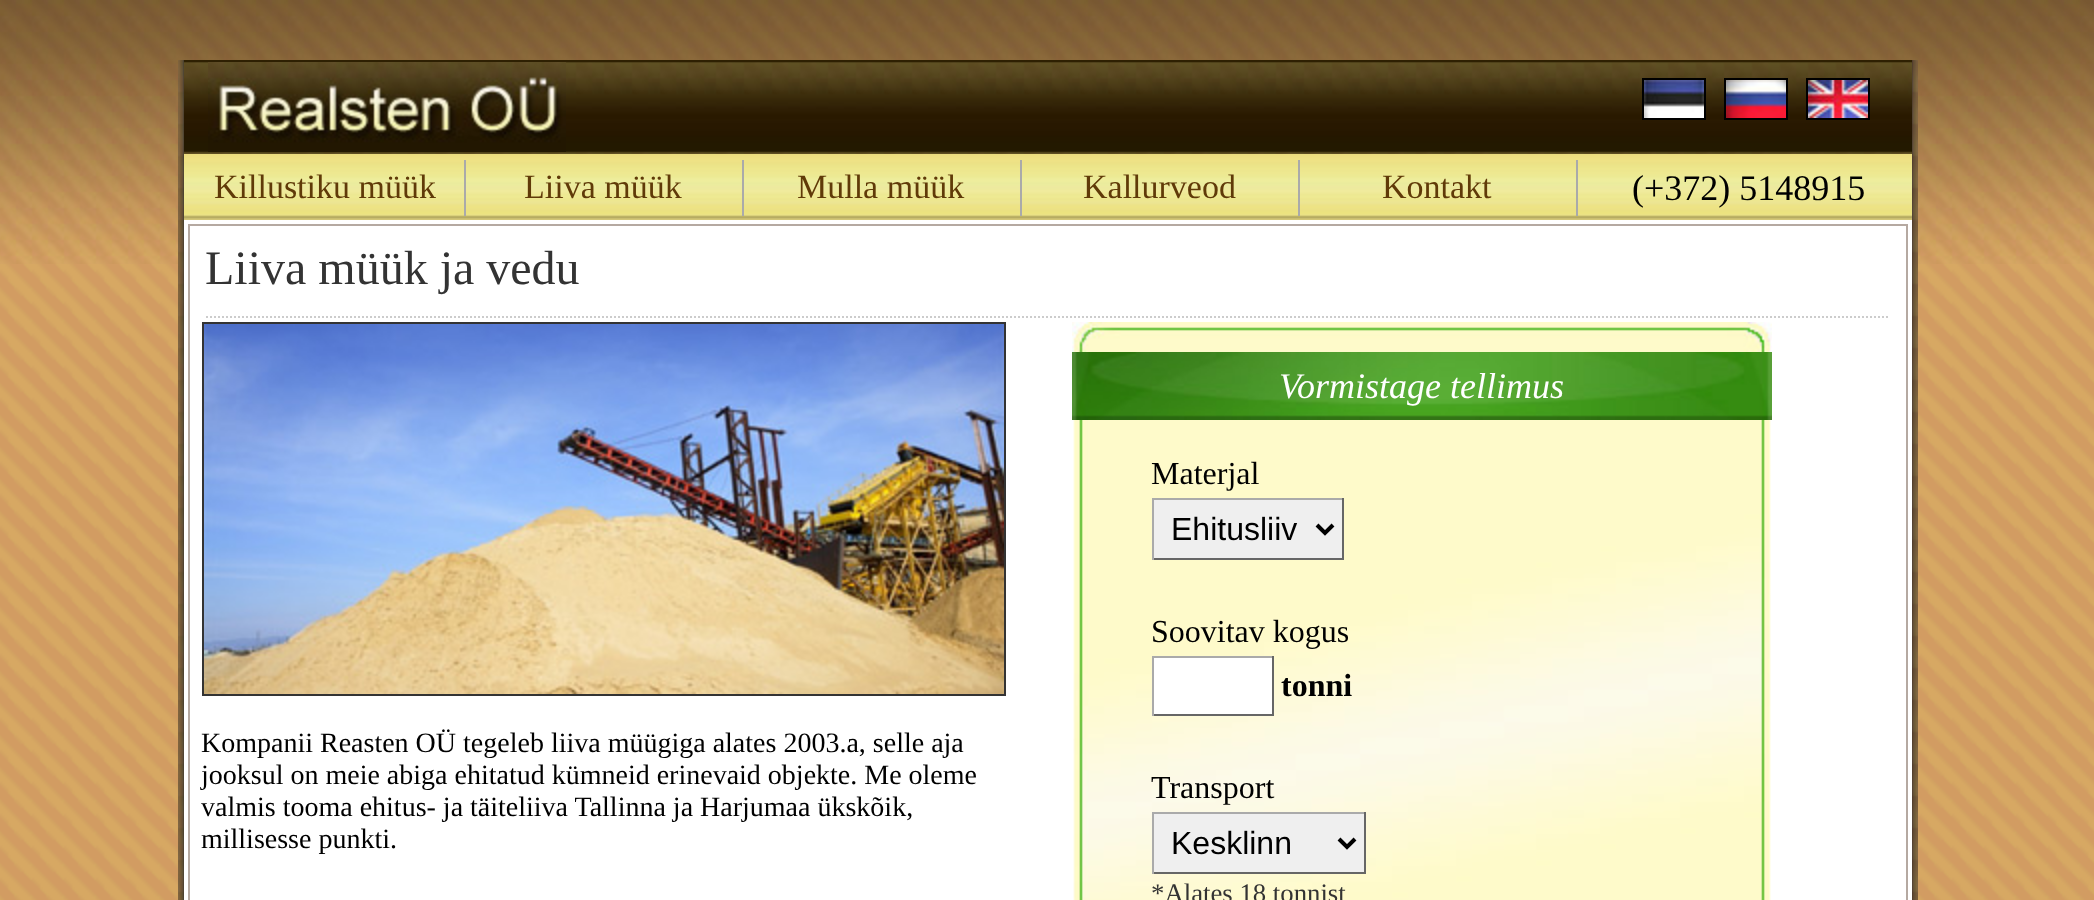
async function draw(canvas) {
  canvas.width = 2094;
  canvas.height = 900;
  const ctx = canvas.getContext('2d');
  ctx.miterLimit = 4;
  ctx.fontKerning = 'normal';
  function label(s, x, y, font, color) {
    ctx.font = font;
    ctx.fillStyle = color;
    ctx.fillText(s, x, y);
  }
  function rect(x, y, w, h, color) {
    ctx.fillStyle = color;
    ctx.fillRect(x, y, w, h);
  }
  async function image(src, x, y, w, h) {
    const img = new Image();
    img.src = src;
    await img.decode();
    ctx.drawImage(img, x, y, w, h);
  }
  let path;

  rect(0, 0, 2094, 900, '#fff');
  await image('assets/img1.png', 0, 264, 2094, 636);
  await image('assets/img2.png', 0, 0, 2094, 264);
  await image('assets/img3.png', 178, 60, 1740, 840);
  await image('assets/img4.png', 184, 62, 1728, 92);
  rect(184, 60, 1728, 2, '#2e2002');
  await image('assets/img5.png', 208, 62, 358, 90);
  ctx.strokeStyle = '#000';
  ctx.lineWidth = 2;
  ctx.strokeRect(1643, 79, 62, 40);
  ctx.strokeRect(1725, 79, 62, 40);
  ctx.strokeRect(1807, 79, 62, 40);
  await image('assets/img6.png', 1644, 80, 60, 38);
  await image('assets/img7.png', 1726, 80, 60, 38);
  await image('assets/img8.png', 1808, 80, 60, 38);
  await image('assets/img9.png', 184, 154, 1728, 66);
  rect(464, 160, 2, 56, '#aaa');
  label('Killustiku müük', 214, 198, '34px Liberation Serif', '#603a08');
  rect(742, 160, 2, 56, '#aaa');
  label('Liiva müük', 524, 198, '34px Liberation Serif', '#603a08');
  rect(1020, 160, 2, 56, '#aaa');
  label('Mulla müük', 797, 198, '34px Liberation Serif', '#603a08');
  rect(1298, 160, 2, 56, '#aaa');
  label('Kallurveod', 1083, 198, '34px Liberation Serif', '#603a08');
  rect(1576, 160, 2, 56, '#aaa');
  label('Kontakt', 1382, 198, '34px Liberation Serif', '#603a08');
  label('(+372) 5148915', 1632, 200, '36px Liberation Serif', '#000');
  rect(184, 220, 1728, 680, '#fff');
  ctx.strokeStyle = '#b5a9a1';
  ctx.strokeRect(189, 225, 1718, 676);
  path = new Path2D('M206 317H1890');
  ctx.strokeStyle = '#ccc';
  ctx.setLineDash([2, 2]);
  ctx.stroke(path);
  label('Liiva müük ja vedu', 205, 284, '48px Liberation Serif', '#333');
  ctx.strokeStyle = '#333';
  ctx.setLineDash([]);
  ctx.strokeRect(203, 323, 802, 372);
  await image('assets/img10.png', 204, 324, 800, 370);
  label('Kompanii Reasten OÜ tegeleb liiva müügiga alates 2003.a, selle aja', 201, 752, '28px Liberation Serif', '#000');
  label('jooksul on meie abiga ehitatud kümneid erinevaid objekte. Me oleme', 201, 784, '28px Liberation Serif', '#000');
  label('valmis tooma ehitus- ja täiteliiva Tallinna ja Harjumaa ükskõik,', 201, 816, '28px Liberation Serif', '#000');
  label('millisesse punkti.', 201, 848, '28px Liberation Serif', '#000');
  await image('assets/img11.png', 1073, 420, 698, 480);
  await image('assets/img12.png', 1072, 322, 700, 30);
  await image('assets/img13.png', 1072, 352, 700, 68);
  label('Vormistage tellimus', 1279, 398, 'italic 36px Liberation Serif', '#fff');
  label('Materjal', 1151, 484, '32px Liberation Serif', '#000');
  rect(1154, 500, 188, 58, '#efefef');
  rect(1152, 498, 192, 2, '#aaa');
  rect(1342, 498, 2, 62, '#666');
  rect(1152, 558, 192, 2, '#666');
  rect(1152, 498, 2, 62, '#aaa');
  path = new Path2D('M1317 525L1325 533L1333 525');
  ctx.strokeStyle = '#000';
  ctx.lineWidth = 4;
  ctx.stroke(path);
  label('Ehitusliiv', 1171, 540, '32px Liberation Sans', '#000');
  label('Soovitav kogus', 1151, 642, '32px Liberation Serif', '#000');
  rect(1154, 658, 118, 56, '#fff');
  rect(1152, 656, 122, 2, '#aaa');
  rect(1272, 656, 2, 60, '#666');
  rect(1152, 714, 122, 2, '#666');
  rect(1152, 656, 2, 60, '#aaa');
  label('tonni', 1281, 696, 'bold 32px Liberation Serif', '#000');
  label('Transport', 1151, 798, '32px Liberation Serif', '#000');
  rect(1154, 814, 210, 58, '#efefef');
  rect(1152, 812, 214, 2, '#aaa');
  rect(1364, 812, 2, 62, '#666');
  rect(1152, 872, 214, 2, '#666');
  rect(1152, 812, 2, 62, '#aaa');
  path = new Path2D('M1339 839L1347 847L1355 839');
  ctx.stroke(path);
  label('Kesklinn', 1171, 854, '32px Liberation Sans', '#000');
  label('*Alates 18 tonnist', 1151, 902, '26.75px Liberation Serif', '#333');
}

draw(document.querySelector('canvas'));
